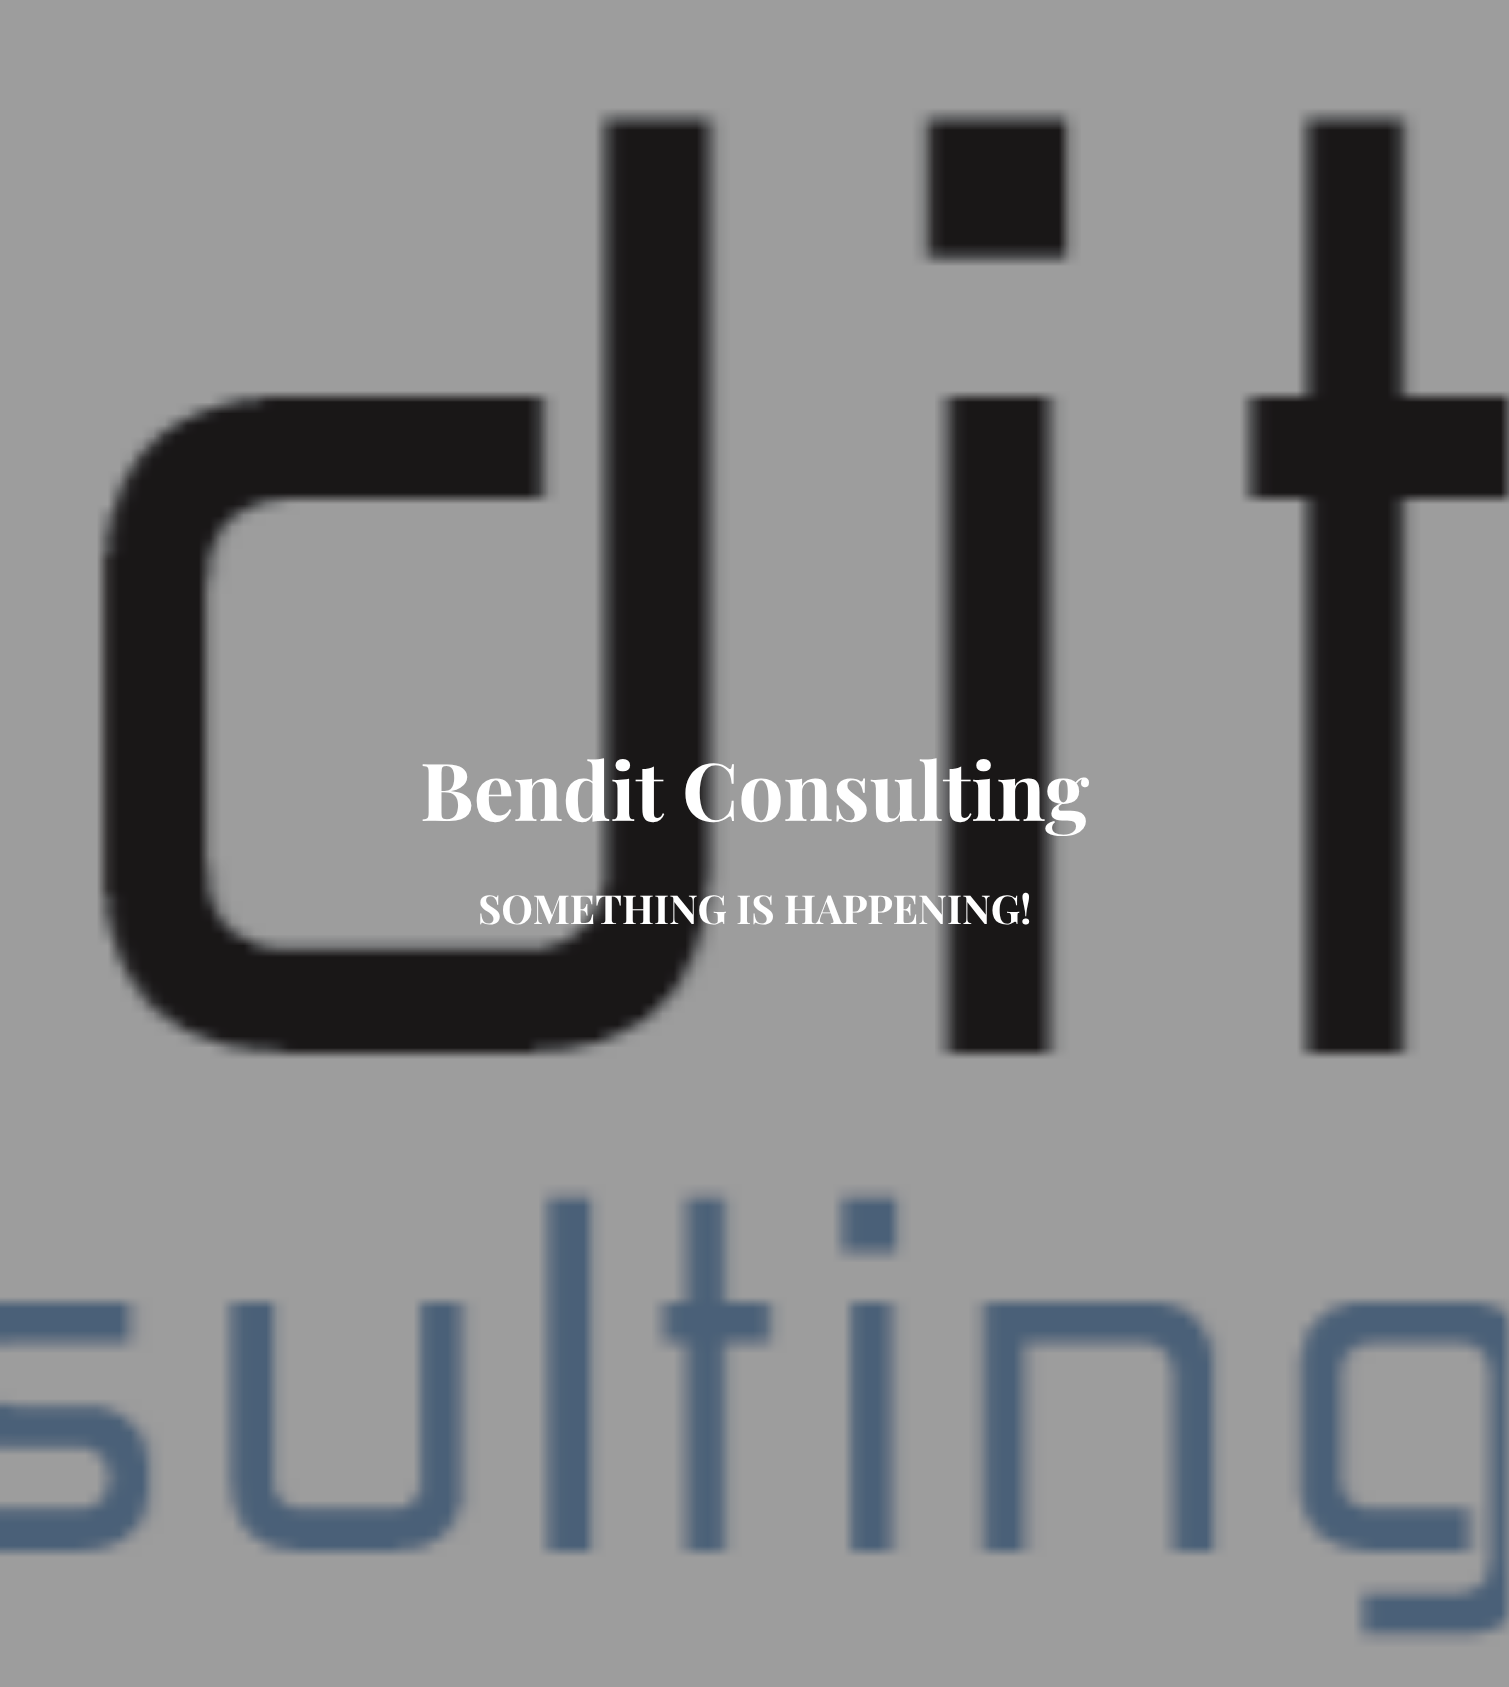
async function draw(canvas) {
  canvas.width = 1509;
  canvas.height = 1687;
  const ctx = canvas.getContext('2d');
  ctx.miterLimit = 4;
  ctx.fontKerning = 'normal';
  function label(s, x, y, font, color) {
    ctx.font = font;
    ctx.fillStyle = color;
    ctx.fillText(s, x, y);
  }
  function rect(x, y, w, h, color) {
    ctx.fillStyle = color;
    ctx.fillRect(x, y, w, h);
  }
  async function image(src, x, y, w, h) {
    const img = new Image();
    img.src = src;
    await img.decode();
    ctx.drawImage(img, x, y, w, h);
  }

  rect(0, 0, 1509, 1687, '#9d9d9d');
  await image('assets/img1.png', 0, 108, 1509, 1539);
  label('Bendit Consulting', 420, 821, 'bold 80px Playfair Display', '#fff');
  label('SOMETHING IS HAPPENING!', 478, 924, 'bold 40px Playfair Display', '#fff');
}

draw(document.querySelector('canvas'));
